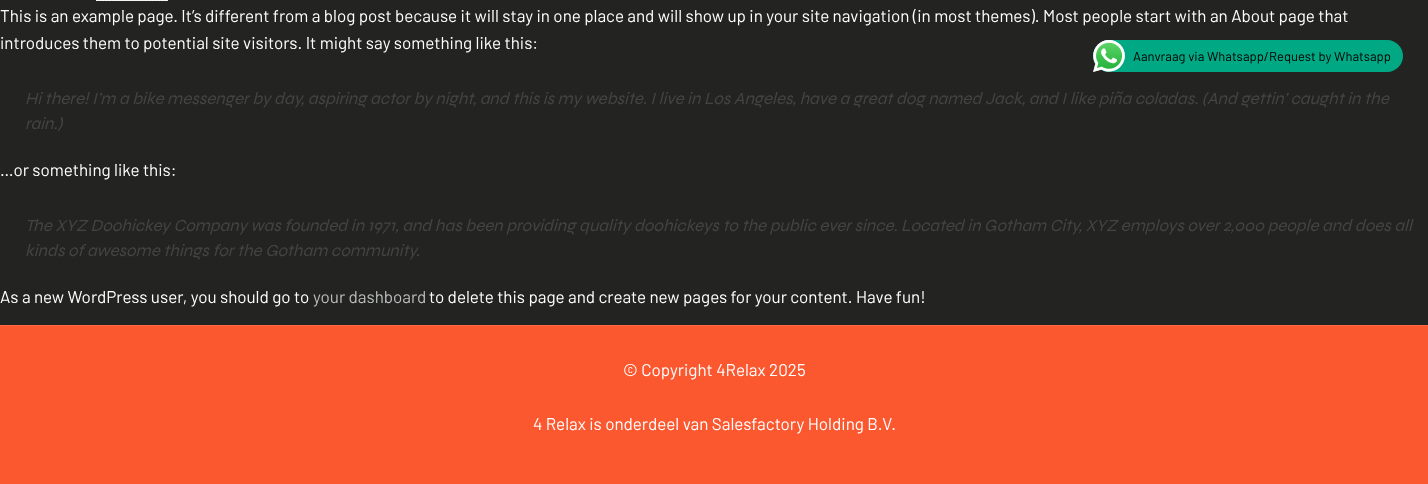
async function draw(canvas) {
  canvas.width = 1428;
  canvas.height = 484;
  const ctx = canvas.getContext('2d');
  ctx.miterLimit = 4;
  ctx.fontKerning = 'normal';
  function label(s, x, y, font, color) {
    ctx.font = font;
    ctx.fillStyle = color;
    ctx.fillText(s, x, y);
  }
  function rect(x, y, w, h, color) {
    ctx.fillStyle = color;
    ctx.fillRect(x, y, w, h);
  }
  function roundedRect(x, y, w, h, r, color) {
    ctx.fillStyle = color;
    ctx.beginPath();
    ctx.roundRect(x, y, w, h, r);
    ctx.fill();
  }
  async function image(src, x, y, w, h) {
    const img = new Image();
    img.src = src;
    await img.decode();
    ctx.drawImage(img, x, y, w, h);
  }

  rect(0, 0, 1428, 484, '#232321');
  await image('assets/img1.png', 96, 0, 72, 1);
  label('This is an example page. It’s different from a blog post because it will stay in one place and will show up in your site navigation (in most themes). Most people start with an About page that', 0, 22, '17px Barlow', '#fff');
  label('introduces them to potential site visitors. It might say something like this:', 0, 49, '17px Barlow', '#fff');
  label('Hi there! I’m a bike messenger by day, aspiring actor by night, and this is my website. I live in Los Angeles, have a great dog named Jack, and I like piña coladas. (And gettin’ caught in the', 25, 104, 'italic 17px Syne', '#444');
  label('rain.)', 25, 129, 'italic 17px Syne', '#444');
  label('…or something like this:', 0, 176, '17px Barlow', '#fff');
  label('The XYZ Doohickey Company was founded in 1971, and has been providing quality doohickeys to the public ever since. Located in Gotham City, XYZ employs over 2,000 people and does all', 25, 231, 'italic 17px Syne', '#444');
  label('kinds of awesome things for the Gotham community.', 25, 256, 'italic 17px Syne', '#444');
  label('As a new WordPress user, you should go to', 0, 303, '17px Barlow', '#fff');
  label('your dashboard', 313, 303, '17px Barlow', '#bcbdbf');
  label('to delete this page and create new pages for your content. Have fun!', 429, 303, '17px Barlow', '#fff');
  rect(0, 326, 1428, 158, '#fc5830');
  rect(0, 325, 1428, 1, '#fc6945');
  label('© Copyright 4Relax 2025', 623, 376, '17px Barlow', '#fff');
  label('4 Relax is onderdeel van Salesfactory Holding B.V.', 533, 430, '17px Barlow', '#fff');
  roundedRect(1093, 40, 310, 32, 16, '#00a884');
  await image('assets/img2.png', 1093, 40, 32, 32);
  label('Aanvraag via Whatsapp/Request by Whatsapp', 1133, 61, '13px Barlow', '#000');
}

draw(document.querySelector('canvas'));
